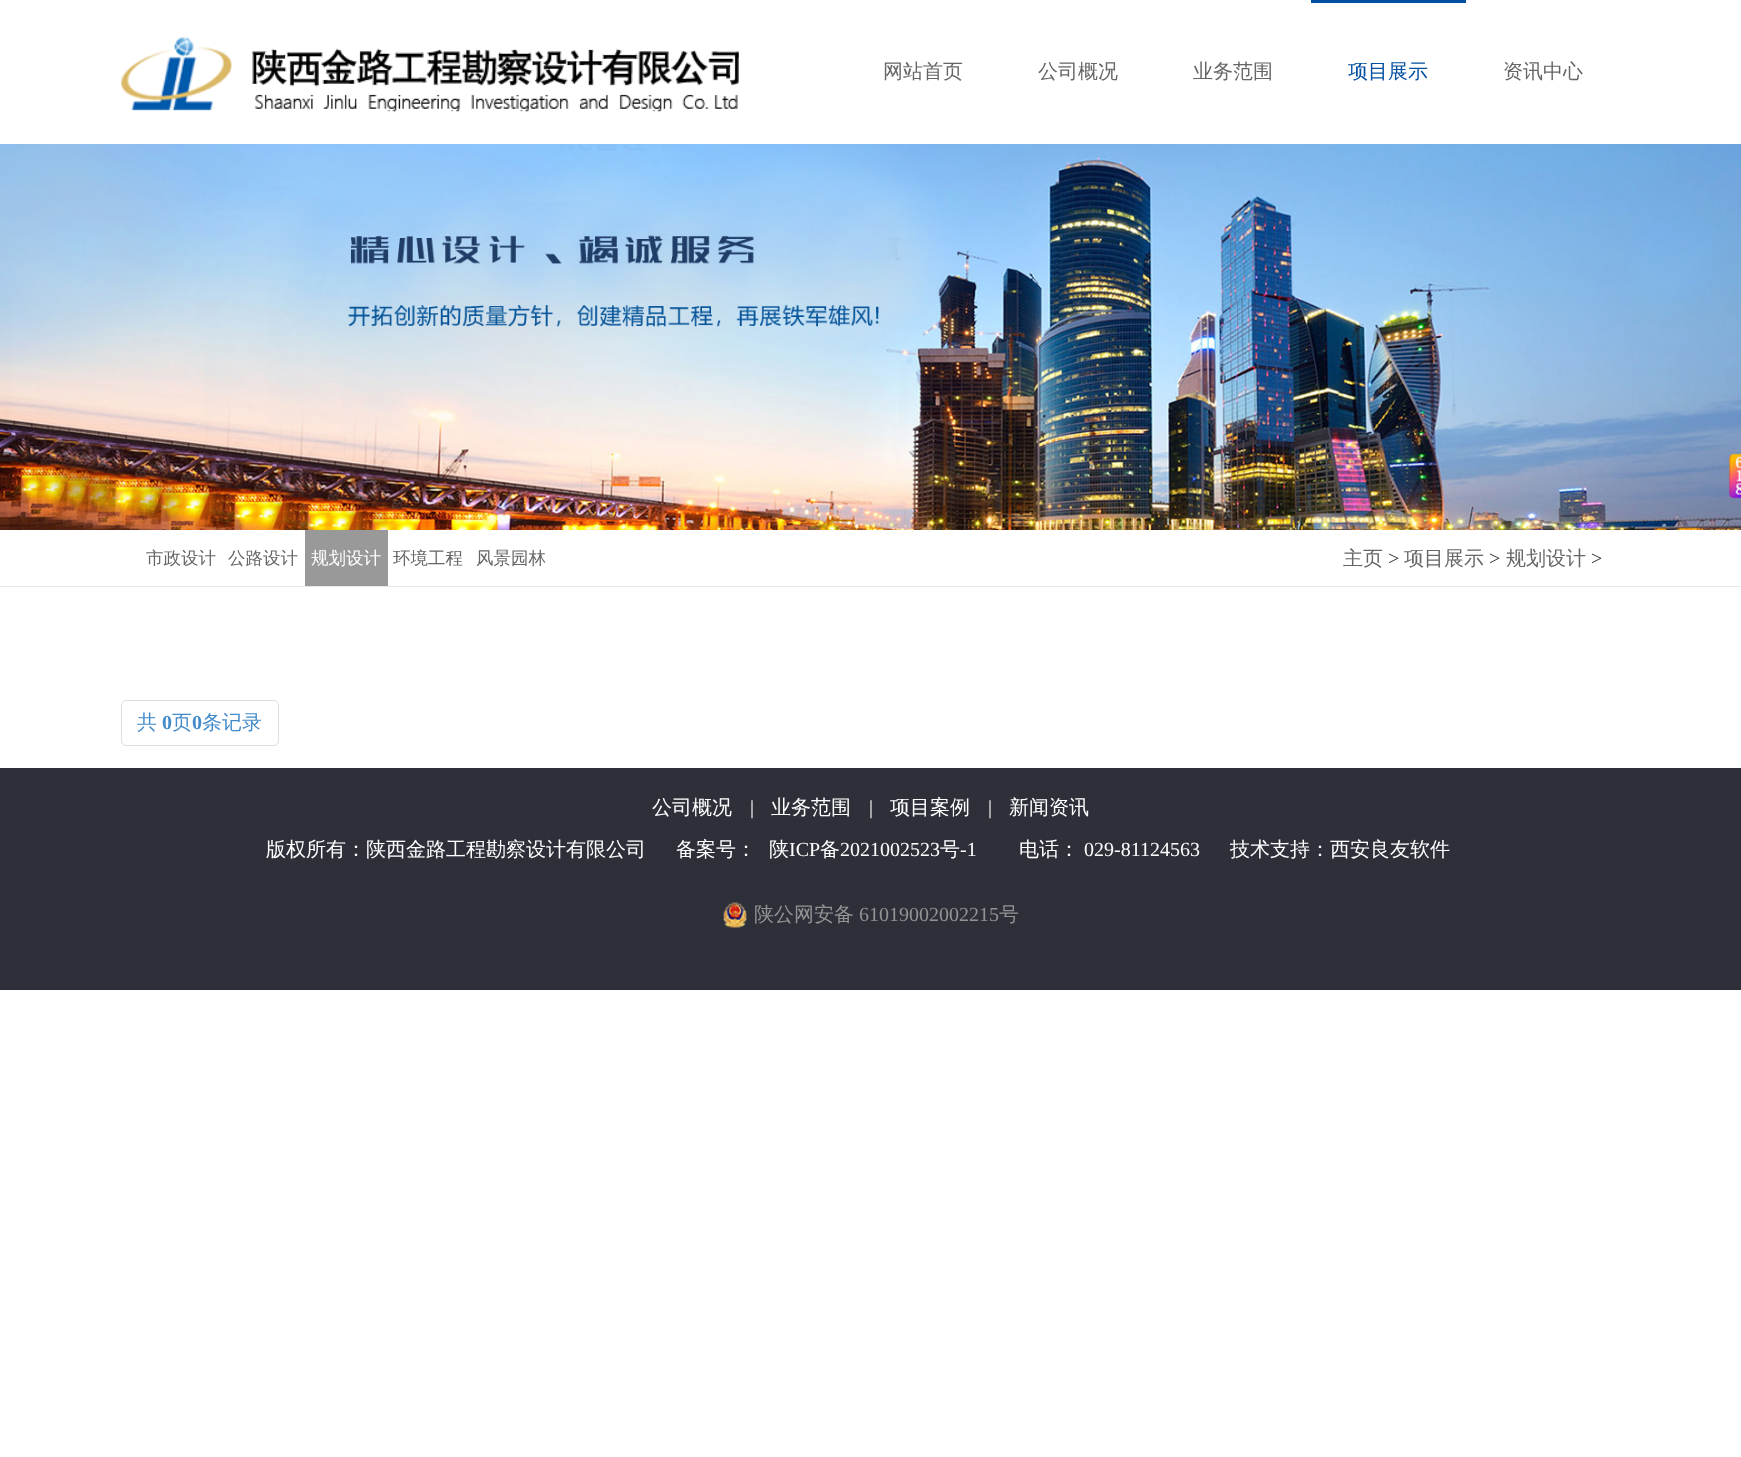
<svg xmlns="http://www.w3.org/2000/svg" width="1741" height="1457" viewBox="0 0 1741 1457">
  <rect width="100%" height="100%" fill="#fff"/>
  <image x="121" y="37" width="618" height="75" href="img/1.png"/>
  <path d="M1311 0h155v3H1311z" fill="#014fa1"/>
  <image x="0" y="144" width="1741" height="386" href="img/2.png"/>
  <path d="M0 586h1741v1H0z" fill="#e7e7e7"/>
  <path d="M305 530h83v56H305z" fill="#999"/>
  <rect x="121.5" y="700.5" width="157" height="45" rx="4.5" fill="none" stroke="#ddd"/>
  <path d="M0 768h1741v222H0z" fill="#2d3039"/>
  <image x="723" y="902" width="24" height="26" href="img/3.png"/>
  <g font-family="WenQuanYi Zen Hei" font-size="20" font-weight="500" fill="#666">
    <text x="883" y="78">网站首页</text>
    <text x="1038" y="78">公司概况</text>
    <text x="1193" y="78">业务范围</text>
  </g>
  <text x="1348" y="78" font-family="WenQuanYi Zen Hei" font-size="20" font-weight="500" fill="#014fa1">项目展示</text>
  <text x="1503" y="78" font-family="WenQuanYi Zen Hei" font-size="20" font-weight="500" fill="#666">资讯中心</text>
  <g font-family="WenQuanYi Zen Hei" font-size="17.5" font-weight="500" fill="#666">
    <text x="146" y="564">市政设计</text>
    <text x="228" y="564">公路设计</text>
  </g>
  <text x="311" y="564" font-family="WenQuanYi Zen Hei" font-size="17.5" font-weight="500" fill="#fff">规划设计</text>
  <g font-family="WenQuanYi Zen Hei" font-size="17.5" font-weight="500" fill="#666">
    <text x="393" y="564">环境工程</text>
    <text x="476" y="564">风景园林</text>
  </g>
  <text x="1343" y="565" font-family="WenQuanYi Zen Hei" font-size="20" font-weight="500" fill="#666">主页</text>
  <text x="1388" y="565" font-family="Liberation Serif" font-size="20" fill="#333">&gt;</text>
  <text x="1404" y="565" font-family="WenQuanYi Zen Hei" font-size="20" font-weight="500" fill="#666">项目展示</text>
  <text x="1489" y="565" font-family="Liberation Serif" font-size="20" fill="#333">&gt;</text>
  <text x="1506" y="565" font-family="WenQuanYi Zen Hei" font-size="20" font-weight="500" fill="#666">规划设计</text>
  <text x="1591" y="565" font-family="Liberation Serif" font-size="20" fill="#333">&gt;</text>
  <text x="137" y="729" font-family="WenQuanYi Zen Hei" font-size="20" font-weight="500" fill="#428bca">共</text>
  <text x="162" y="729" font-family="Liberation Serif" font-size="20" font-weight="bold" fill="#428bca">0</text>
  <text x="172" y="729" font-family="WenQuanYi Zen Hei" font-size="20" font-weight="500" fill="#428bca">页</text>
  <text x="192" y="729" font-family="Liberation Serif" font-size="20" font-weight="bold" fill="#428bca">0</text>
  <text x="202" y="729" font-family="WenQuanYi Zen Hei" font-size="20" font-weight="500" fill="#428bca">条记录</text>
  <text x="652" y="814" font-family="WenQuanYi Zen Hei" font-size="20" font-weight="500" fill="#fff">公司概况</text>
  <text x="750" y="814" font-family="Liberation Serif" font-size="20" fill="#fff">|</text>
  <text x="771" y="814" font-family="WenQuanYi Zen Hei" font-size="20" font-weight="500" fill="#fff">业务范围</text>
  <text x="869" y="814" font-family="Liberation Serif" font-size="20" fill="#fff">|</text>
  <text x="890" y="814" font-family="WenQuanYi Zen Hei" font-size="20" font-weight="500" fill="#fff">项目案例</text>
  <text x="988" y="814" font-family="Liberation Serif" font-size="20" fill="#fff">|</text>
  <g font-family="WenQuanYi Zen Hei" font-size="20" font-weight="500" fill="#fff">
    <text x="1009" y="814">新闻资讯</text>
    <text x="266" y="856">版权所有：陕西金路工程勘察设计有限公司</text>
    <text x="676" y="856">备案号：</text>
    <text x="769" y="856">陕</text>
  </g>
  <text x="789" y="856" font-family="Liberation Serif" font-size="20" fill="#fff">ICP</text>
  <text x="820" y="856" font-family="WenQuanYi Zen Hei" font-size="20" font-weight="500" fill="#fff">备</text>
  <text x="840" y="856" font-family="Liberation Serif" font-size="20" fill="#fff">2021002523</text>
  <text x="940" y="856" font-family="WenQuanYi Zen Hei" font-size="20" font-weight="500" fill="#fff">号</text>
  <text x="960" y="856" font-family="Liberation Serif" font-size="20" fill="#fff">-1</text>
  <text x="1019" y="856" font-family="WenQuanYi Zen Hei" font-size="20" font-weight="500" fill="#fff">电话：</text>
  <text x="1084" y="856" font-family="Liberation Serif" font-size="20" fill="#fff">029-81124563</text>
  <text x="1230" y="856" font-family="WenQuanYi Zen Hei" font-size="20" font-weight="500" fill="#fff">技术支持：西安良友软件</text>
  <text x="754" y="921" font-family="WenQuanYi Zen Hei" font-size="20" font-weight="500" fill="#939393">陕公网安备</text>
  <text x="859" y="921" font-family="Liberation Serif" font-size="20" fill="#939393">61019002002215</text>
  <text x="999" y="921" font-family="WenQuanYi Zen Hei" font-size="20" font-weight="500" fill="#939393">号</text>
</svg>
